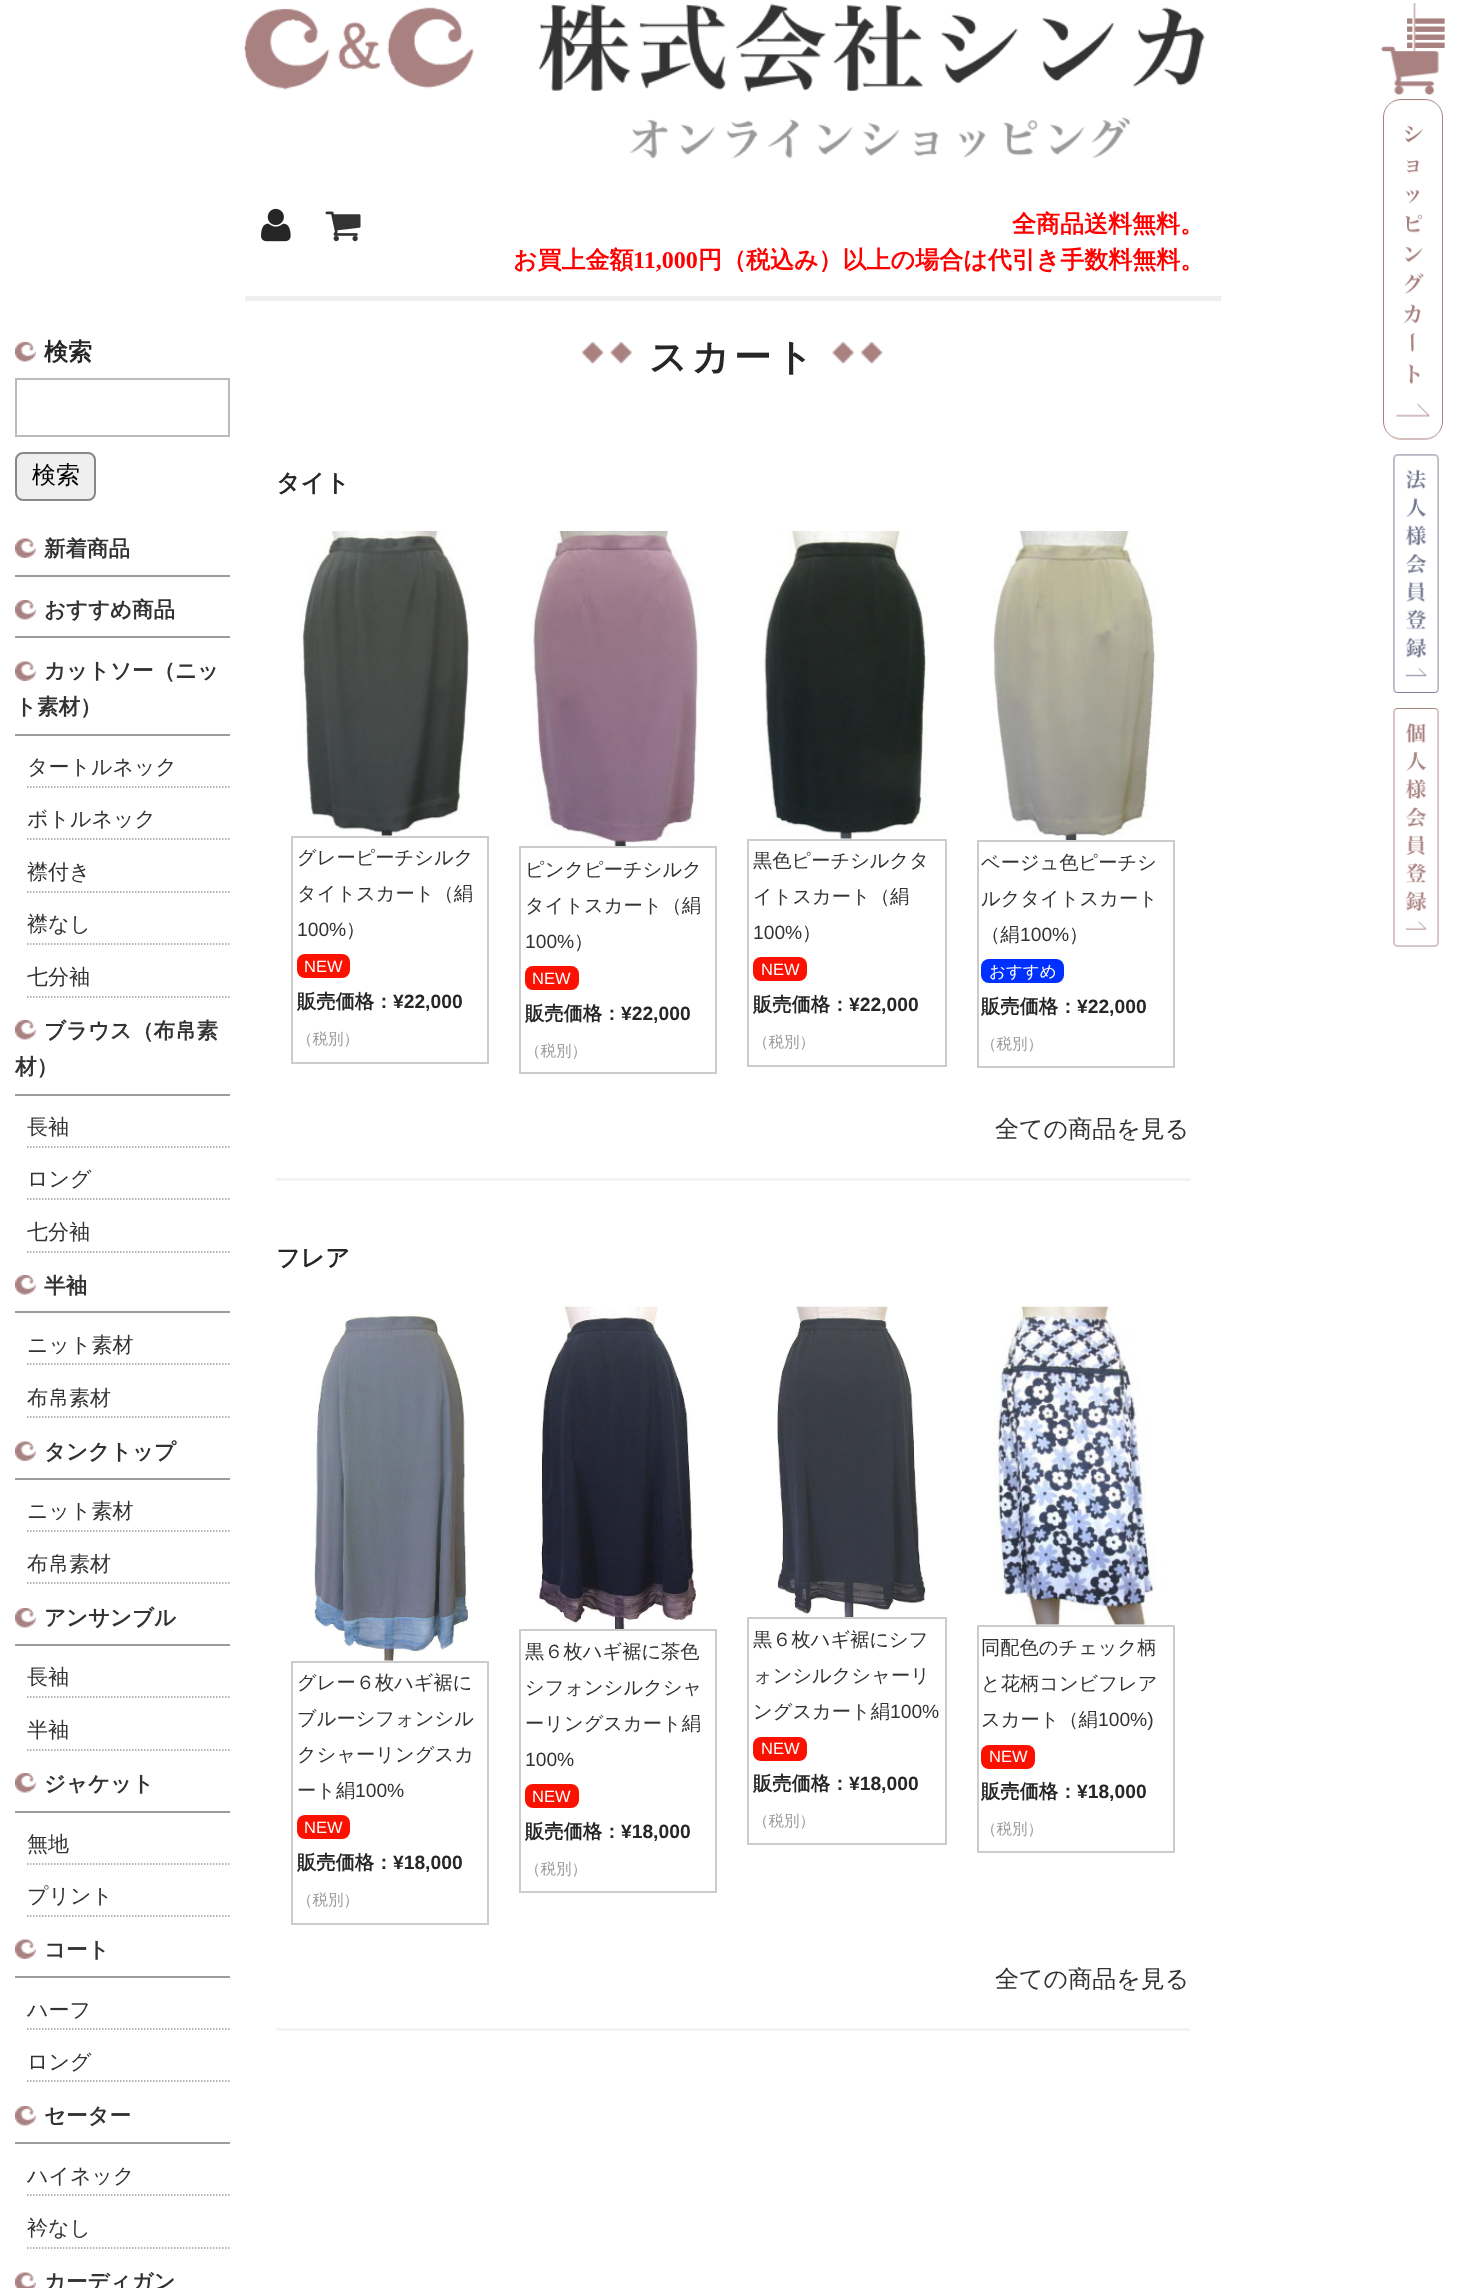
<svg xmlns="http://www.w3.org/2000/svg" width="1462" height="2288" viewBox="0 0 1462 2288">
  <rect width="100%" height="100%" fill="#fff"/>
  <path d="M245 296h976v5H245z" fill="#efefef"/>
  <image x="1381" y="3" width="58" height="93" href="img/18.png"/>
  <image x="1407" y="18" width="38" height="30" href="img/1.png"/>
  <image x="244" y="3" width="961" height="156" href="img/2.png"/>
  <image x="261" y="208" width="30" height="34" href="img/3.png"/>
  <image x="325" y="211" width="36" height="31" href="img/4.png"/>
  <image x="15" y="342" width="21" height="20" href="img/5.png"/>
  <path d="M16 379h213v57H16z" fill="none" stroke="#bbb" stroke-width="2"/>
  <rect x="16" y="453" width="79" height="47" rx="7" fill="#efefef" stroke="#888" stroke-width="2"/>
  <path d="M15 575h215v2H15z" fill="#9c9c9c"/>
  <image x="15" y="538" width="21" height="20" href="img/6.png"/>
  <path d="M15 636h215v2H15z" fill="#9c9c9c"/>
  <image x="15" y="600" width="21" height="20" href="img/5.png"/>
  <path d="M15 734h215v2H15z" fill="#9c9c9c"/>
  <image x="15" y="661" width="21" height="20" href="img/6.png"/>
  <path d="M27 787H229.5" fill="none" stroke="#9c9c9c" stroke-width="1.5" stroke-dasharray="1.5 1.5"/>
  <path d="M27 839H229.5" fill="none" stroke="#9c9c9c" stroke-width="1.5" stroke-dasharray="1.5 1.5"/>
  <path d="M27 892H229.5" fill="none" stroke="#9c9c9c" stroke-width="1.5" stroke-dasharray="1.5 1.5"/>
  <path d="M27 944H229.5" fill="none" stroke="#9c9c9c" stroke-width="1.5" stroke-dasharray="1.5 1.5"/>
  <path d="M27 997H229.5" fill="none" stroke="#9c9c9c" stroke-width="1.5" stroke-dasharray="1.5 1.5"/>
  <path d="M15 1094h215v2H15z" fill="#9c9c9c"/>
  <image x="15" y="1020" width="21" height="20" href="img/5.png"/>
  <path d="M27 1147H229.5" fill="none" stroke="#9c9c9c" stroke-width="1.5" stroke-dasharray="1.5 1.5"/>
  <path d="M27 1199H229.5" fill="none" stroke="#9c9c9c" stroke-width="1.5" stroke-dasharray="1.5 1.5"/>
  <path d="M27 1252H229.5" fill="none" stroke="#9c9c9c" stroke-width="1.5" stroke-dasharray="1.5 1.5"/>
  <path d="M15 1311h215v2H15z" fill="#9c9c9c"/>
  <image x="15" y="1275" width="21" height="20" href="img/5.png"/>
  <path d="M27 1364H229.5" fill="none" stroke="#9c9c9c" stroke-width="1.5" stroke-dasharray="1.5 1.5"/>
  <path d="M27 1417H229.5" fill="none" stroke="#9c9c9c" stroke-width="1.5" stroke-dasharray="1.5 1.5"/>
  <path d="M15 1478h215v2H15z" fill="#9c9c9c"/>
  <image x="15" y="1441" width="21" height="20" href="img/6.png"/>
  <path d="M27 1531H229.5" fill="none" stroke="#9c9c9c" stroke-width="1.5" stroke-dasharray="1.5 1.5"/>
  <path d="M27 1583H229.5" fill="none" stroke="#9c9c9c" stroke-width="1.5" stroke-dasharray="1.5 1.5"/>
  <path d="M15 1644h215v2H15z" fill="#9c9c9c"/>
  <image x="15" y="1608" width="21" height="20" href="img/5.png"/>
  <path d="M27 1697H229.5" fill="none" stroke="#9c9c9c" stroke-width="1.5" stroke-dasharray="1.5 1.5"/>
  <path d="M27 1750H229.5" fill="none" stroke="#9c9c9c" stroke-width="1.5" stroke-dasharray="1.5 1.5"/>
  <path d="M15 1811h215v2H15z" fill="#9c9c9c"/>
  <image x="15" y="1773" width="21" height="20" href="img/5.png"/>
  <path d="M27 1864H229.5" fill="none" stroke="#9c9c9c" stroke-width="1.5" stroke-dasharray="1.5 1.5"/>
  <path d="M27 1916H229.5" fill="none" stroke="#9c9c9c" stroke-width="1.5" stroke-dasharray="1.5 1.5"/>
  <path d="M15 1976h215v2H15z" fill="#9c9c9c"/>
  <image x="15" y="1939" width="21" height="20" href="img/6.png"/>
  <path d="M27 2029H229.5" fill="none" stroke="#9c9c9c" stroke-width="1.5" stroke-dasharray="1.5 1.5"/>
  <path d="M27 2081H229.5" fill="none" stroke="#9c9c9c" stroke-width="1.5" stroke-dasharray="1.5 1.5"/>
  <path d="M15 2142h215v2H15z" fill="#9c9c9c"/>
  <image x="15" y="2106" width="21" height="20" href="img/5.png"/>
  <path d="M27 2195H229.5" fill="none" stroke="#9c9c9c" stroke-width="1.5" stroke-dasharray="1.5 1.5"/>
  <path d="M27 2248H229.5" fill="none" stroke="#9c9c9c" stroke-width="1.5" stroke-dasharray="1.5 1.5"/>
  <image x="15" y="2272" width="21" height="16" href="img/7.png"/>
  <image x="582" y="342" width="50" height="22" href="img/8.png"/>
  <image x="832" y="342" width="51" height="22" href="img/9.png"/>
  <path d="M276 1178h914v3H276z" fill="#f3f3f3"/>
  <image x="299" y="531" width="170" height="305" href="img/10.png"/>
  <path d="M292 837h196v226H292z" fill="none" stroke="#ccc" stroke-width="2"/>
  <rect x="297" y="954" width="53" height="24" rx="8" fill="#fa1100"/>
  <image x="529" y="531" width="174" height="315" href="img/11.png"/>
  <path d="M520 847h196v226H520z" fill="none" stroke="#ccc" stroke-width="2"/>
  <rect x="525" y="966" width="54" height="24" rx="8" fill="#fa1100"/>
  <image x="764" y="531" width="164" height="308" href="img/12.png"/>
  <path d="M748 840h198v226H748z" fill="none" stroke="#ccc" stroke-width="2"/>
  <rect x="753" y="957" width="54" height="24" rx="8" fill="#fa1100"/>
  <image x="993" y="531" width="164" height="309" href="img/13.png"/>
  <path d="M978 841h196v226H978z" fill="none" stroke="#ccc" stroke-width="2"/>
  <rect x="981" y="959" width="83" height="24" rx="8" fill="#0030ff"/>
  <path d="M276 2028h914v3H276z" fill="#f3f3f3"/>
  <image x="313" y="1314" width="155" height="347" href="img/14.png"/>
  <path d="M292 1662h196v262H292z" fill="none" stroke="#ccc" stroke-width="2"/>
  <rect x="297" y="1815" width="53" height="24" rx="8" fill="#fa1100"/>
  <image x="539" y="1306" width="157" height="323" href="img/15.png"/>
  <path d="M520 1630h196v262H520z" fill="none" stroke="#ccc" stroke-width="2"/>
  <rect x="525" y="1784" width="54" height="24" rx="8" fill="#fa1100"/>
  <image x="776" y="1306" width="150" height="311" href="img/16.png"/>
  <path d="M748 1618h198v226H748z" fill="none" stroke="#ccc" stroke-width="2"/>
  <rect x="753" y="1737" width="54" height="24" rx="8" fill="#fa1100"/>
  <image x="993" y="1306" width="170" height="319" href="img/17.png"/>
  <path d="M978 1626h196v226H978z" fill="none" stroke="#ccc" stroke-width="2"/>
  <rect x="981" y="1745" width="54" height="24" rx="8" fill="#fa1100"/>
  <image x="1383" y="99" width="60" height="341" href="img/19.png"/>
  <image x="1393" y="454" width="46" height="239" href="img/20.png"/>
  <image x="1393" y="708" width="46" height="239" href="img/21.png"/>
  <g font-family="WenQuanYi Zen Hei" font-size="24" font-weight="bold" fill="#f00">
    <text x="1012" y="232">全商品送料無料。</text>
    <text x="513" y="268">お買上金額</text>
  </g>
  <text x="633" y="268" font-family="Liberation Serif" font-size="24" font-weight="bold" fill="#f00">11,000</text>
  <text x="698" y="268" font-family="WenQuanYi Zen Hei" font-size="24" font-weight="bold" fill="#f00">円（税込み）以上の場合は代引き手数料無料。</text>
  <text x="44" y="360" font-family="WenQuanYi Zen Hei" font-size="24" font-weight="bold" fill="#262626">検索</text>
  <text x="32" y="483" font-family="WenQuanYi Zen Hei" font-size="24" font-weight="500" fill="#000">検索</text>
  <g font-family="WenQuanYi Zen Hei" font-size="21.5" font-weight="bold" fill="#333">
    <text x="44" y="556">新着商品</text>
    <text x="44" y="617">おすすめ商品</text>
    <text x="44" y="678">カットソー（ニッ</text>
    <text x="15" y="714">ト素材）</text>
  </g>
  <g font-family="WenQuanYi Zen Hei" font-size="21" font-weight="500" fill="#333">
    <text x="27" y="774">タートルネック</text>
    <text x="27" y="826">ボトルネック</text>
    <text x="27" y="879">襟付き</text>
    <text x="27" y="931">襟なし</text>
    <text x="27" y="984">七分袖</text>
  </g>
  <g font-family="WenQuanYi Zen Hei" font-size="21.5" font-weight="bold" fill="#333">
    <text x="44" y="1038">ブラウス（布帛素</text>
    <text x="15" y="1074">材）</text>
  </g>
  <g font-family="WenQuanYi Zen Hei" font-size="21" font-weight="500" fill="#333">
    <text x="27" y="1134">長袖</text>
    <text x="27" y="1186">ロング</text>
    <text x="27" y="1239">七分袖</text>
  </g>
  <text x="44" y="1293" font-family="WenQuanYi Zen Hei" font-size="21.5" font-weight="bold" fill="#333">半袖</text>
  <g font-family="WenQuanYi Zen Hei" font-size="21" font-weight="500" fill="#333">
    <text x="27" y="1352">ニット素材</text>
    <text x="27" y="1405">布帛素材</text>
  </g>
  <text x="44" y="1459" font-family="WenQuanYi Zen Hei" font-size="21.5" font-weight="bold" fill="#333">タンクトップ</text>
  <g font-family="WenQuanYi Zen Hei" font-size="21" font-weight="500" fill="#333">
    <text x="27" y="1518">ニット素材</text>
    <text x="27" y="1571">布帛素材</text>
  </g>
  <text x="44" y="1625" font-family="WenQuanYi Zen Hei" font-size="21.5" font-weight="bold" fill="#333">アンサンブル</text>
  <g font-family="WenQuanYi Zen Hei" font-size="21" font-weight="500" fill="#333">
    <text x="27" y="1684">長袖</text>
    <text x="27" y="1737">半袖</text>
  </g>
  <text x="44" y="1791" font-family="WenQuanYi Zen Hei" font-size="21.5" font-weight="bold" fill="#333">ジャケット</text>
  <g font-family="WenQuanYi Zen Hei" font-size="21" font-weight="500" fill="#333">
    <text x="27" y="1851">無地</text>
    <text x="27" y="1903">プリント</text>
  </g>
  <text x="44" y="1957" font-family="WenQuanYi Zen Hei" font-size="21.5" font-weight="bold" fill="#333">コート</text>
  <g font-family="WenQuanYi Zen Hei" font-size="21" font-weight="500" fill="#333">
    <text x="27" y="2017">ハーフ</text>
    <text x="27" y="2069">ロング</text>
  </g>
  <text x="44" y="2123" font-family="WenQuanYi Zen Hei" font-size="21.5" font-weight="bold" fill="#333">セーター</text>
  <g font-family="WenQuanYi Zen Hei" font-size="21" font-weight="500" fill="#333">
    <text x="27" y="2183">ハイネック</text>
    <text x="27" y="2235">衿なし</text>
  </g>
  <text x="44" y="2289" font-family="WenQuanYi Zen Hei" font-size="21.5" font-weight="bold" fill="#333">カーディガン</text>
  <text x="649" y="370" font-family="WenQuanYi Zen Hei" font-size="37.5" font-weight="bold" letter-spacing="4" fill="#262626">スカート</text>
  <text x="276" y="491" font-family="WenQuanYi Zen Hei" font-size="24" font-weight="bold" fill="#262626">タイト</text>
  <g font-family="WenQuanYi Zen Hei" font-size="19.25" font-weight="500" fill="#333">
    <text x="297" y="864">グレーピーチシルク</text>
    <text x="297" y="900">タイトスカート（絹</text>
  </g>
  <text x="297" y="936" font-family="Liberation Sans" font-size="19.25" fill="#333">100%</text>
  <text x="346" y="936" font-family="WenQuanYi Zen Hei" font-size="19.25" font-weight="500" fill="#333">）</text>
  <text x="304" y="972" font-family="Liberation Sans" font-size="16.5" fill="#fff">NEW</text>
  <text x="297" y="1008" font-family="WenQuanYi Zen Hei" font-size="19.25" font-weight="bold" fill="#262626">販売価格：</text>
  <text x="393" y="1008" font-family="Liberation Sans" font-size="19.25" font-weight="bold" fill="#262626">¥22,000</text>
  <text x="297" y="1044" font-family="WenQuanYi Zen Hei" font-size="15.5" font-weight="500" fill="#999">（税別）</text>
  <g font-family="WenQuanYi Zen Hei" font-size="19.25" font-weight="500" fill="#333">
    <text x="525" y="876">ピンクピーチシルク</text>
    <text x="525" y="912">タイトスカート（絹</text>
  </g>
  <text x="525" y="948" font-family="Liberation Sans" font-size="19.25" fill="#333">100%</text>
  <text x="574" y="948" font-family="WenQuanYi Zen Hei" font-size="19.25" font-weight="500" fill="#333">）</text>
  <text x="532" y="984" font-family="Liberation Sans" font-size="16.5" fill="#fff">NEW</text>
  <text x="525" y="1020" font-family="WenQuanYi Zen Hei" font-size="19.25" font-weight="bold" fill="#262626">販売価格：</text>
  <text x="621" y="1020" font-family="Liberation Sans" font-size="19.25" font-weight="bold" fill="#262626">¥22,000</text>
  <text x="525" y="1056" font-family="WenQuanYi Zen Hei" font-size="15.5" font-weight="500" fill="#999">（税別）</text>
  <g font-family="WenQuanYi Zen Hei" font-size="19.25" font-weight="500" fill="#333">
    <text x="753" y="867">黒色ピーチシルクタ</text>
    <text x="753" y="903">イトスカート（絹</text>
  </g>
  <text x="753" y="939" font-family="Liberation Sans" font-size="19.25" fill="#333">100%</text>
  <text x="802" y="939" font-family="WenQuanYi Zen Hei" font-size="19.25" font-weight="500" fill="#333">）</text>
  <text x="761" y="975" font-family="Liberation Sans" font-size="16.5" fill="#fff">NEW</text>
  <text x="753" y="1011" font-family="WenQuanYi Zen Hei" font-size="19.25" font-weight="bold" fill="#262626">販売価格：</text>
  <text x="849" y="1011" font-family="Liberation Sans" font-size="19.25" font-weight="bold" fill="#262626">¥22,000</text>
  <text x="753" y="1047" font-family="WenQuanYi Zen Hei" font-size="15.5" font-weight="500" fill="#999">（税別）</text>
  <g font-family="WenQuanYi Zen Hei" font-size="19.25" font-weight="500" fill="#333">
    <text x="981" y="869">ベージュ色ピーチシ</text>
    <text x="981" y="905">ルクタイトスカート</text>
    <text x="981" y="941">（絹</text>
  </g>
  <text x="1020" y="941" font-family="Liberation Sans" font-size="19.25" fill="#333">100%</text>
  <text x="1069" y="941" font-family="WenQuanYi Zen Hei" font-size="19.25" font-weight="500" fill="#333">）</text>
  <text x="989" y="977" font-family="WenQuanYi Zen Hei" font-size="16.5" font-weight="500" fill="#fff">おすすめ</text>
  <text x="981" y="1013" font-family="WenQuanYi Zen Hei" font-size="19.25" font-weight="bold" fill="#262626">販売価格：</text>
  <text x="1077" y="1013" font-family="Liberation Sans" font-size="19.25" font-weight="bold" fill="#262626">¥22,000</text>
  <text x="981" y="1049" font-family="WenQuanYi Zen Hei" font-size="15.5" font-weight="500" fill="#999">（税別）</text>
  <text x="995" y="1137" font-family="WenQuanYi Zen Hei" font-size="24" font-weight="500" fill="#333">全ての商品を見る</text>
  <text x="276" y="1266" font-family="WenQuanYi Zen Hei" font-size="24" font-weight="bold" fill="#262626">フレア</text>
  <g font-family="WenQuanYi Zen Hei" font-size="19.25" font-weight="500" fill="#333">
    <text x="297" y="1689">グレー６枚ハギ裾に</text>
    <text x="297" y="1725">ブルーシフォンシル</text>
    <text x="297" y="1761">クシャーリングスカ</text>
    <text x="297" y="1797">ート絹</text>
  </g>
  <text x="355" y="1797" font-family="Liberation Sans" font-size="19.25" fill="#333">100%</text>
  <text x="304" y="1833" font-family="Liberation Sans" font-size="16.5" fill="#fff">NEW</text>
  <text x="297" y="1869" font-family="WenQuanYi Zen Hei" font-size="19.25" font-weight="bold" fill="#262626">販売価格：</text>
  <text x="393" y="1869" font-family="Liberation Sans" font-size="19.25" font-weight="bold" fill="#262626">¥18,000</text>
  <text x="297" y="1905" font-family="WenQuanYi Zen Hei" font-size="15.5" font-weight="500" fill="#999">（税別）</text>
  <g font-family="WenQuanYi Zen Hei" font-size="19.25" font-weight="500" fill="#333">
    <text x="525" y="1658">黒６枚ハギ裾に茶色</text>
    <text x="525" y="1694">シフォンシルクシャ</text>
    <text x="525" y="1730">ーリングスカート絹</text>
  </g>
  <text x="525" y="1766" font-family="Liberation Sans" font-size="19.25" fill="#333">100%</text>
  <text x="532" y="1802" font-family="Liberation Sans" font-size="16.5" fill="#fff">NEW</text>
  <text x="525" y="1838" font-family="WenQuanYi Zen Hei" font-size="19.25" font-weight="bold" fill="#262626">販売価格：</text>
  <text x="621" y="1838" font-family="Liberation Sans" font-size="19.25" font-weight="bold" fill="#262626">¥18,000</text>
  <text x="525" y="1874" font-family="WenQuanYi Zen Hei" font-size="15.5" font-weight="500" fill="#999">（税別）</text>
  <g font-family="WenQuanYi Zen Hei" font-size="19.25" font-weight="500" fill="#333">
    <text x="753" y="1646">黒６枚ハギ裾にシフ</text>
    <text x="753" y="1682">ォンシルクシャーリ</text>
    <text x="753" y="1718">ングスカート絹</text>
  </g>
  <text x="890" y="1718" font-family="Liberation Sans" font-size="19.25" fill="#333">100%</text>
  <text x="761" y="1754" font-family="Liberation Sans" font-size="16.5" fill="#fff">NEW</text>
  <text x="753" y="1790" font-family="WenQuanYi Zen Hei" font-size="19.25" font-weight="bold" fill="#262626">販売価格：</text>
  <text x="849" y="1790" font-family="Liberation Sans" font-size="19.25" font-weight="bold" fill="#262626">¥18,000</text>
  <text x="753" y="1826" font-family="WenQuanYi Zen Hei" font-size="15.5" font-weight="500" fill="#999">（税別）</text>
  <g font-family="WenQuanYi Zen Hei" font-size="19.25" font-weight="500" fill="#333">
    <text x="981" y="1654">同配色のチェック柄</text>
    <text x="981" y="1690">と花柄コンビフレア</text>
    <text x="981" y="1726">スカート（絹</text>
  </g>
  <text x="1098" y="1726" font-family="Liberation Sans" font-size="19.25" fill="#333">100%)</text>
  <text x="989" y="1762" font-family="Liberation Sans" font-size="16.5" fill="#fff">NEW</text>
  <text x="981" y="1798" font-family="WenQuanYi Zen Hei" font-size="19.25" font-weight="bold" fill="#262626">販売価格：</text>
  <text x="1077" y="1798" font-family="Liberation Sans" font-size="19.25" font-weight="bold" fill="#262626">¥18,000</text>
  <text x="981" y="1834" font-family="WenQuanYi Zen Hei" font-size="15.5" font-weight="500" fill="#999">（税別）</text>
  <text x="995" y="1987" font-family="WenQuanYi Zen Hei" font-size="24" font-weight="500" fill="#333">全ての商品を見る</text>
</svg>
